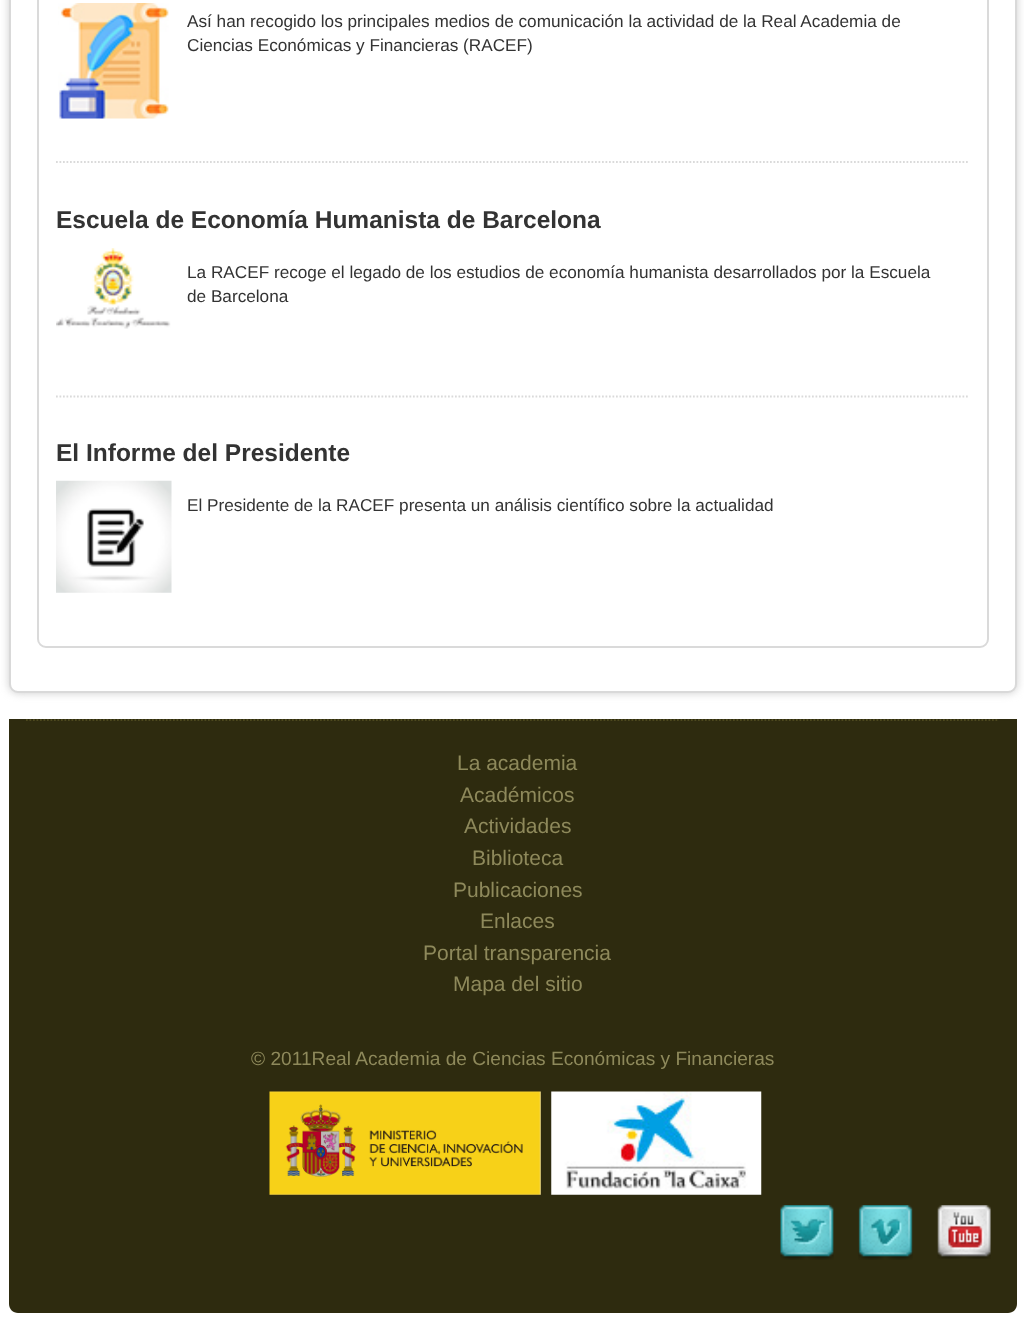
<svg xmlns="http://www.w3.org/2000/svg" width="1024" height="1329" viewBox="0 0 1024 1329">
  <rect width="100%" height="100%" fill="#fff"/>
  <rect x="9" y="-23" width="1008" height="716" rx="9" fill="#ccc" filter="blur(4.5px)"/>
  <rect x="10" y="-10" width="1006" height="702" rx="8" fill="#fff" stroke="#d9d9d9" stroke-width="2"/>
  <rect x="38" y="-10" width="950" height="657" rx="8" fill="none" stroke="#dadada" stroke-width="2"/>
  <path d="M56 162H969.5" fill="none" stroke="#dadada" stroke-width="1.8" stroke-dasharray="1.75 1.75"/>
  <image x="58" y="3" width="111" height="116" href="img/1.png"/>
  <path d="M56 396.5H969.5" fill="none" stroke="#dadada" stroke-width="1.8" stroke-dasharray="1.75 1.75"/>
  <image x="56" y="248" width="115" height="81" href="img/2.png"/>
  <image x="56" y="480" width="116" height="113" href="img/3.png"/>
  <path d="M9 719H1017V1304C1017 1309 1013 1313 1008 1313H18C13 1313 9 1309 9 1304Z" fill="#2e2b0f"/>
  <path d="M26 720H999" fill="none" stroke="#4c481e" stroke-width="1.8" stroke-dasharray="1.75 1.75"/>
  <image x="269" y="1091" width="272" height="104" href="img/4.png"/>
  <image x="551" y="1091" width="211" height="104" href="img/5.png"/>
  <image x="780" y="1205" width="54" height="55" href="img/6.png"/>
  <image x="858" y="1205" width="55" height="55" href="img/7.png"/>
  <image x="937" y="1205" width="54" height="54" href="img/8.png"/>
  <g font-family="Liberation Sans" font-size="17.2" fill="#333">
    <text x="187" y="27">Así han recogido los principales medios de comunicación la actividad de la Real Academia de</text>
    <text x="187" y="51">Ciencias Económicas y Financieras (RACEF)</text>
  </g>
  <text x="56" y="228" font-family="Liberation Sans" font-size="24.5" font-weight="bold" fill="#333">Escuela de Economía Humanista de Barcelona</text>
  <g font-family="Liberation Sans" font-size="17.2" fill="#333">
    <text x="187" y="278">La RACEF recoge el legado de los estudios de economía humanista desarrollados por la Escuela</text>
    <text x="187" y="302">de Barcelona</text>
  </g>
  <text x="56" y="461" font-family="Liberation Sans" font-size="24.5" font-weight="bold" fill="#333">El Informe del Presidente</text>
  <text x="187" y="511" font-family="Liberation Sans" font-size="17.2" fill="#333">El Presidente de la RACEF presenta un análisis científico sobre la actualidad</text>
  <g font-family="Liberation Sans" font-size="21" fill="#8e895b">
    <text x="457" y="770">La academia</text>
    <text x="460" y="802">Académicos</text>
    <text x="464" y="833">Actividades</text>
    <text x="472" y="865">Biblioteca</text>
    <text x="453" y="897">Publicaciones</text>
    <text x="480" y="928">Enlaces</text>
    <text x="423" y="960">Portal transparencia</text>
    <text x="453" y="991">Mapa del sitio</text>
  </g>
  <text x="251" y="1065" font-family="Liberation Sans" font-size="19.15" fill="#8e895b">© 2011Real Academia de Ciencias Económicas y Financieras</text>
</svg>
